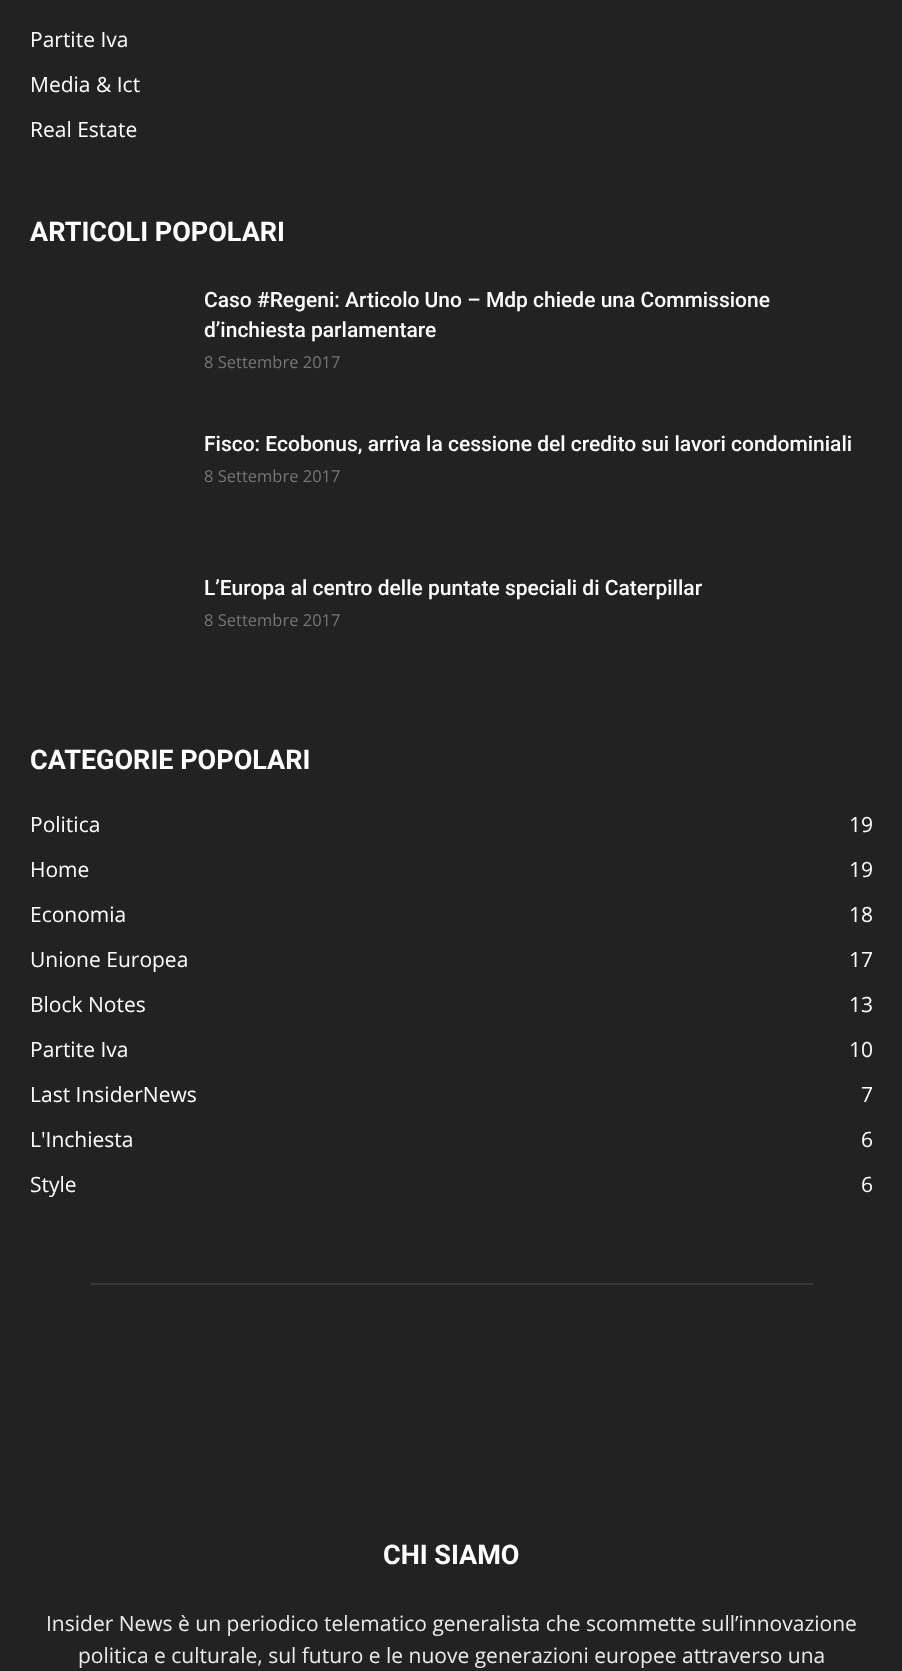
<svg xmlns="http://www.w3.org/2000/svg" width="902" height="1671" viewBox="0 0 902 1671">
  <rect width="100%" height="100%" fill="#222"/>
  <path d="M90 1283h723v2H90z" fill="#383838"/>
  <g font-family="Open Sans" font-size="21" fill="#fff">
    <text x="30" y="47">Partite Iva</text>
    <text x="30" y="92">Media &amp; Ict</text>
    <text x="30" y="137">Real Estate</text>
  </g>
  <text x="30" y="241" font-family="Roboto" font-size="27" font-weight="bold" fill="#fff">ARTICOLI POPOLARI</text>
  <g font-family="Roboto" font-size="21" font-weight="500" fill="#fff">
    <text x="204" y="307">Caso #Regeni: Articolo Uno – Mdp chiede una Commissione</text>
    <text x="204" y="337">d’inchiesta parlamentare</text>
  </g>
  <text x="204" y="368" font-family="Open Sans" font-size="16.5" fill="#767676">8 Settembre 2017</text>
  <text x="204" y="451" font-family="Roboto" font-size="21" font-weight="500" fill="#fff">Fisco: Ecobonus, arriva la cessione del credito sui lavori condominiali</text>
  <text x="204" y="482" font-family="Open Sans" font-size="16.5" fill="#767676">8 Settembre 2017</text>
  <text x="204" y="595" font-family="Roboto" font-size="21" font-weight="500" fill="#fff">L’Europa al centro delle puntate speciali di Caterpillar</text>
  <text x="204" y="626" font-family="Open Sans" font-size="16.5" fill="#767676">8 Settembre 2017</text>
  <text x="30" y="769" font-family="Roboto" font-size="27" font-weight="bold" fill="#fff">CATEGORIE POPOLARI</text>
  <g font-family="Open Sans" font-size="21" fill="#fff">
    <text x="30" y="832">Politica</text>
    <text x="849" y="832">19</text>
    <text x="30" y="877">Home</text>
    <text x="849" y="877">19</text>
    <text x="30" y="922">Economia</text>
    <text x="849" y="922">18</text>
    <text x="30" y="967">Unione Europea</text>
    <text x="849" y="967">17</text>
    <text x="30" y="1012">Block Notes</text>
    <text x="849" y="1012">13</text>
    <text x="30" y="1057">Partite Iva</text>
    <text x="849" y="1057">10</text>
    <text x="30" y="1102">Last InsiderNews</text>
    <text x="861" y="1102">7</text>
    <text x="30" y="1147">L'Inchiesta</text>
    <text x="861" y="1147">6</text>
    <text x="30" y="1192">Style</text>
    <text x="861" y="1192">6</text>
  </g>
  <text x="383" y="1564" font-family="Roboto" font-size="27" font-weight="bold" fill="#fff">CHI SIAMO</text>
  <g font-family="Open Sans" font-size="21" fill="#eaeaea">
    <text x="46" y="1631">Insider News è un periodico telematico generalista che scommette sull’innovazione</text>
    <text x="78" y="1663">politica e culturale, sul futuro e le nuove generazioni europee attraverso una</text>
  </g>
</svg>
